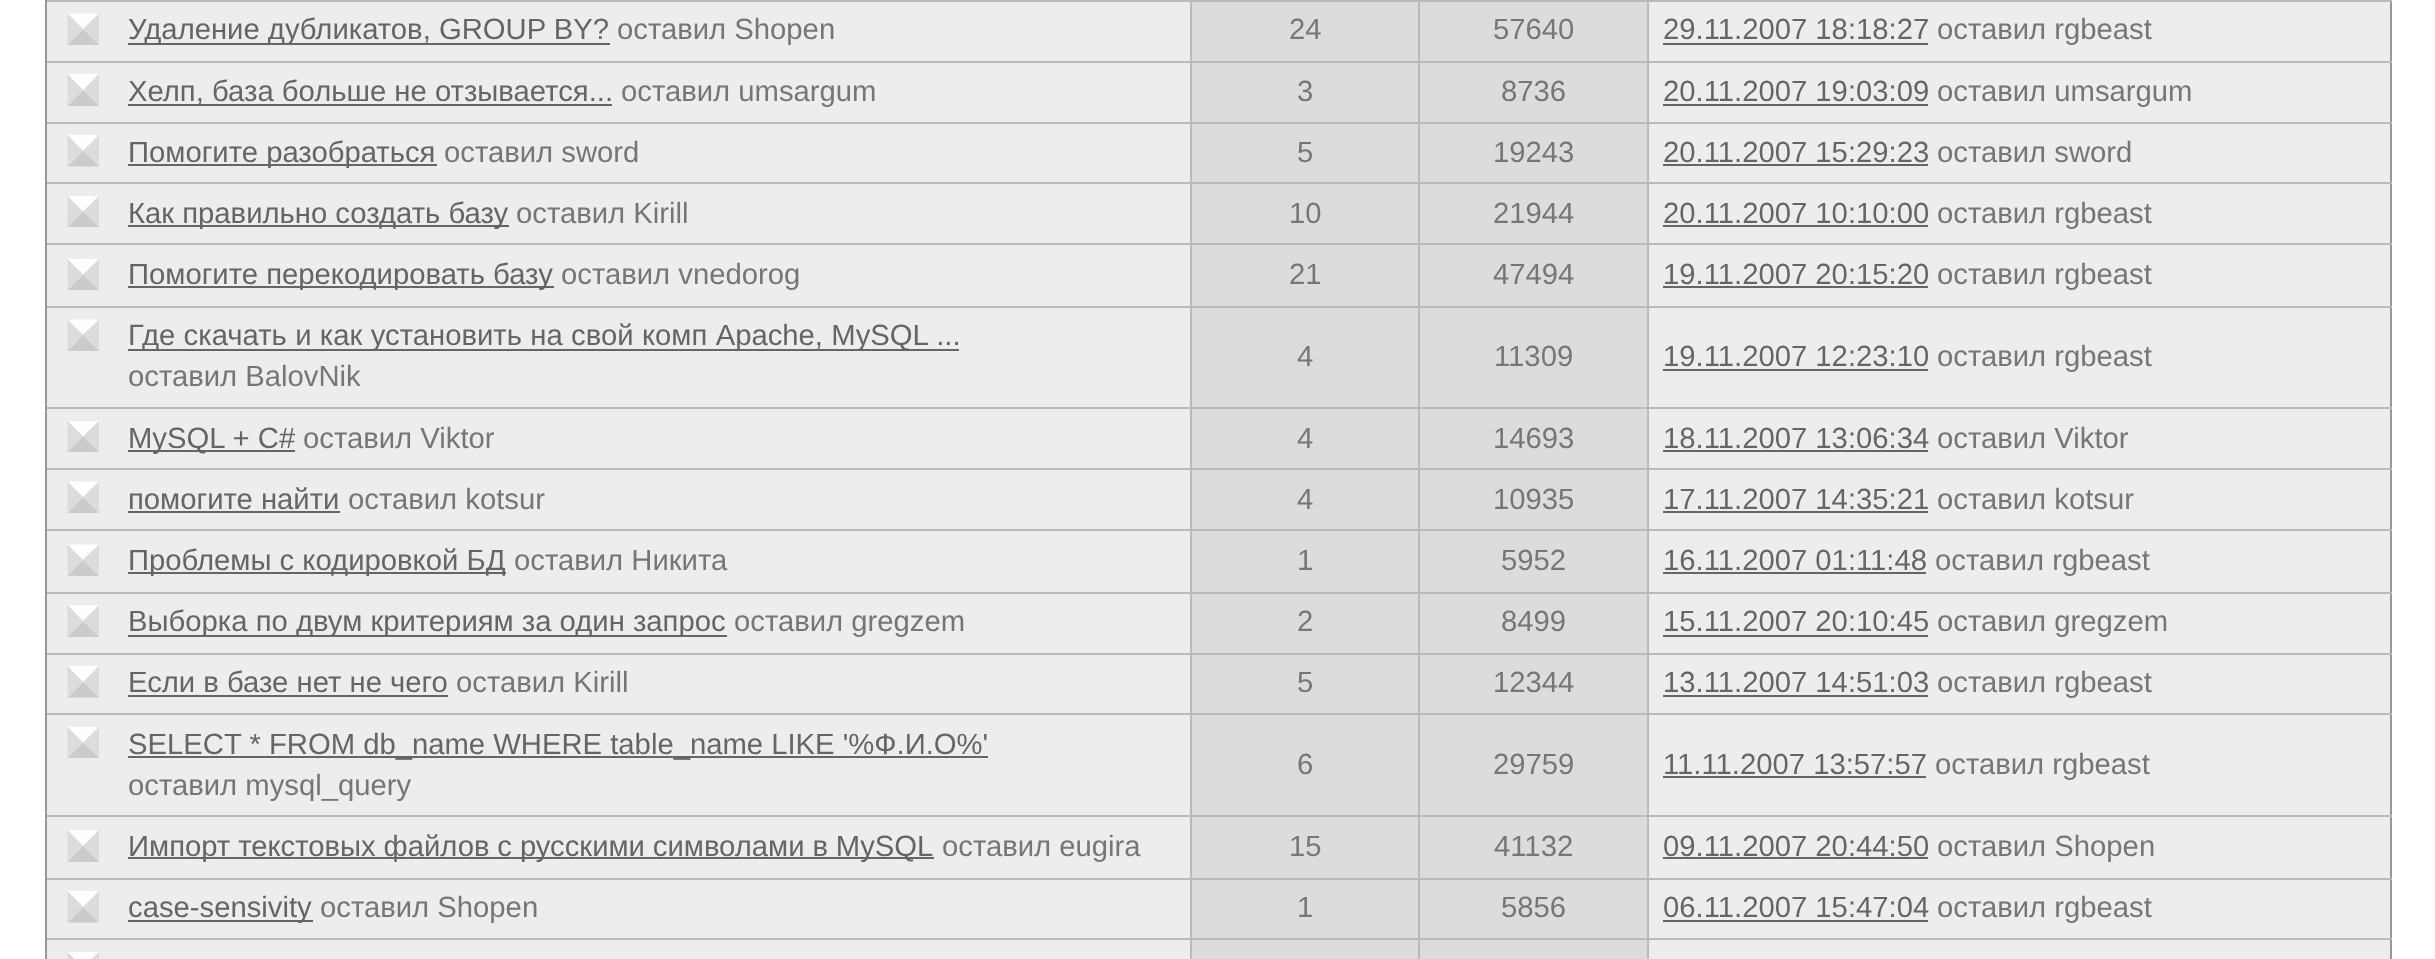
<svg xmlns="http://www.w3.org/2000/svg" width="2435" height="959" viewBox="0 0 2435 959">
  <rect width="100%" height="100%" fill="#fff"/>
  <path d="M47 2h2343v957H47z" fill="#ededed"/>
  <path d="M46 -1h2345v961H46z" fill="none" stroke="#989898" stroke-width="2"/>
  <path d="M1647 0h745v2H1647z" fill="#bababa"/>
  <path d="M1647 61h745v2H1647z" fill="#bababa"/>
  <path d="M1647 122h745v2H1647z" fill="#bababa"/>
  <path d="M1420 124h227v119H1420z" fill="#dcdcdc"/>
  <path d="M1647 182h745v2H1647z" fill="#bababa"/>
  <path d="M1647 243h745v2H1647z" fill="#bababa"/>
  <path d="M1647 306h745v2H1647z" fill="#bababa"/>
  <path d="M1647 407h745v2H1647z" fill="#bababa"/>
  <path d="M1647 468h745v2H1647z" fill="#bababa"/>
  <path d="M1647 529h745v2H1647z" fill="#bababa"/>
  <path d="M1647 592h745v2H1647z" fill="#bababa"/>
  <path d="M1647 653h745v2H1647z" fill="#bababa"/>
  <path d="M1647 713h745v2H1647z" fill="#bababa"/>
  <path d="M1647 815h745v2H1647z" fill="#bababa"/>
  <path d="M1647 878h745v2H1647z" fill="#bababa"/>
  <path d="M1647 938h745v2H1647z" fill="#bababa"/>
  <path d="M1647 938h2v21H1647z" fill="#bababa"/>
  <path d="M1418 938h231v2H1418z" fill="#bababa"/>
  <path d="M1647 878h2v63H1647z" fill="#bababa"/>
  <path d="M1418 878h231v2H1418z" fill="#bababa"/>
  <path d="M1647 815h2v65H1647z" fill="#bababa"/>
  <path d="M1418 815h231v2H1418z" fill="#bababa"/>
  <path d="M1647 713h2v104H1647z" fill="#bababa"/>
  <path d="M1418 713h231v2H1418z" fill="#bababa"/>
  <path d="M1647 653h2v63H1647z" fill="#bababa"/>
  <path d="M1418 653h231v2H1418z" fill="#bababa"/>
  <path d="M1647 592h2v63H1647z" fill="#bababa"/>
  <path d="M1418 592h231v2H1418z" fill="#bababa"/>
  <path d="M1647 529h2v65H1647z" fill="#bababa"/>
  <path d="M1418 529h231v2H1418z" fill="#bababa"/>
  <path d="M1647 468h2v63H1647z" fill="#bababa"/>
  <path d="M1418 468h231v2H1418z" fill="#bababa"/>
  <path d="M1647 407h2v63H1647z" fill="#bababa"/>
  <path d="M1418 407h231v2H1418z" fill="#bababa"/>
  <path d="M1647 306h2v104H1647z" fill="#bababa"/>
  <path d="M1418 306h231v2H1418z" fill="#bababa"/>
  <path d="M1647 243h2v65H1647z" fill="#bababa"/>
  <path d="M1418 243h231v2H1418z" fill="#bababa"/>
  <path d="M1647 182h2v63H1647z" fill="#bababa"/>
  <path d="M1418 182h231v2H1418z" fill="#bababa"/>
  <path d="M1647 122h2v63H1647z" fill="#bababa"/>
  <path d="M1418 122h231v2H1418z" fill="#bababa"/>
  <path d="M1647 61h2v63H1647z" fill="#bababa"/>
  <path d="M1418 61h231v2H1418z" fill="#bababa"/>
  <path d="M1647 0h2v63H1647z" fill="#bababa"/>
  <path d="M1418 0h231v2H1418z" fill="#bababa"/>
  <path d="M1192 124h226v119H1192z" fill="#dcdcdc"/>
  <path d="M1418 938h2v21H1418z" fill="#bababa"/>
  <path d="M1190 938h230v2H1190z" fill="#bababa"/>
  <path d="M1418 878h2v63H1418z" fill="#bababa"/>
  <path d="M1190 878h230v2H1190z" fill="#bababa"/>
  <path d="M1418 815h2v65H1418z" fill="#bababa"/>
  <path d="M1190 815h230v2H1190z" fill="#bababa"/>
  <path d="M1418 713h2v104H1418z" fill="#bababa"/>
  <path d="M1190 713h230v2H1190z" fill="#bababa"/>
  <path d="M1418 653h2v63H1418z" fill="#bababa"/>
  <path d="M1190 653h230v2H1190z" fill="#bababa"/>
  <path d="M1418 592h2v63H1418z" fill="#bababa"/>
  <path d="M1190 592h230v2H1190z" fill="#bababa"/>
  <path d="M1418 529h2v65H1418z" fill="#bababa"/>
  <path d="M1190 529h230v2H1190z" fill="#bababa"/>
  <path d="M1418 468h2v63H1418z" fill="#bababa"/>
  <path d="M1190 468h230v2H1190z" fill="#bababa"/>
  <path d="M1418 407h2v63H1418z" fill="#bababa"/>
  <path d="M1190 407h230v2H1190z" fill="#bababa"/>
  <path d="M1418 306h2v104H1418z" fill="#bababa"/>
  <path d="M1190 306h230v2H1190z" fill="#bababa"/>
  <path d="M1418 243h2v65H1418z" fill="#bababa"/>
  <path d="M1190 243h230v2H1190z" fill="#bababa"/>
  <path d="M1418 182h2v63H1418z" fill="#bababa"/>
  <path d="M1190 182h230v2H1190z" fill="#bababa"/>
  <path d="M1418 122h2v63H1418z" fill="#bababa"/>
  <path d="M1190 122h230v2H1190z" fill="#bababa"/>
  <path d="M1418 61h2v63H1418z" fill="#bababa"/>
  <path d="M1190 61h230v2H1190z" fill="#bababa"/>
  <path d="M1418 0h2v63H1418z" fill="#bababa"/>
  <path d="M1190 0h230v2H1190z" fill="#bababa"/>
  <path d="M1190 938h2v21H1190z" fill="#bababa"/>
  <path d="M47 938h1146v2H47z" fill="#bababa"/>
  <path d="M1190 878h2v63H1190z" fill="#bababa"/>
  <path d="M47 878h1146v2H47z" fill="#bababa"/>
  <path d="M1190 815h2v65H1190z" fill="#bababa"/>
  <path d="M47 815h1146v2H47z" fill="#bababa"/>
  <path d="M1190 713h2v104H1190z" fill="#bababa"/>
  <path d="M47 713h1146v2H47z" fill="#bababa"/>
  <path d="M1190 653h2v63H1190z" fill="#bababa"/>
  <path d="M47 653h1146v2H47z" fill="#bababa"/>
  <path d="M1190 592h2v63H1190z" fill="#bababa"/>
  <path d="M47 592h1146v2H47z" fill="#bababa"/>
  <path d="M1190 529h2v65H1190z" fill="#bababa"/>
  <path d="M47 529h1146v2H47z" fill="#bababa"/>
  <path d="M1190 468h2v63H1190z" fill="#bababa"/>
  <path d="M47 468h1146v2H47z" fill="#bababa"/>
  <path d="M1190 407h2v63H1190z" fill="#bababa"/>
  <path d="M47 407h1146v2H47z" fill="#bababa"/>
  <path d="M1190 306h2v104H1190z" fill="#bababa"/>
  <path d="M47 306h1146v2H47z" fill="#bababa"/>
  <path d="M1190 243h2v65H1190z" fill="#bababa"/>
  <path d="M47 243h1146v2H47z" fill="#bababa"/>
  <path d="M1190 182h2v63H1190z" fill="#bababa"/>
  <path d="M47 182h1146v2H47z" fill="#bababa"/>
  <path d="M1190 122h2v63H1190z" fill="#bababa"/>
  <path d="M47 122h1146v2H47z" fill="#bababa"/>
  <path d="M1190 61h2v63H1190z" fill="#bababa"/>
  <path d="M47 61h1146v2H47z" fill="#bababa"/>
  <path d="M1190 0h2v63H1190z" fill="#bababa"/>
  <path d="M47 0h1146v2H47z" fill="#bababa"/>
  <path d="M67.5 13.5H99L83 29Z" fill="#fefefe"/>
  <path d="M99 13.5V45L83 29Z" fill="#dcdcdc"/>
  <path d="M99 45H67.5L83 29Z" fill="#cbcbcb"/>
  <path d="M67.5 45V13.5L83 29Z" fill="#dcdcdc"/>
  <path d="M128 43h482v2H128z" fill="#656565"/>
  <path d="M1192 2h226v59H1192z" fill="#dcdcdc"/>
  <path d="M1420 2h227v59H1420z" fill="#dcdcdc"/>
  <path d="M1663 43h265v2H1663z" fill="#656565"/>
  <path d="M67.5 74H99L83 90Z" fill="#fefefe"/>
  <path d="M99 74V106L83 90Z" fill="#dcdcdc"/>
  <path d="M99 106H67.5L83 90Z" fill="#cbcbcb"/>
  <path d="M67.5 106V74L83 90Z" fill="#dcdcdc"/>
  <path d="M128 104h484v2H128z" fill="#656565"/>
  <path d="M1192 63h226v59H1192z" fill="#dcdcdc"/>
  <path d="M1420 63h227v59H1420z" fill="#dcdcdc"/>
  <path d="M1663 104h265v2H1663z" fill="#656565"/>
  <path d="M67.5 135H99L83 151Z" fill="#fefefe"/>
  <path d="M99 135V166.5L83 151Z" fill="#dcdcdc"/>
  <path d="M99 166.5H67.5L83 151Z" fill="#cbcbcb"/>
  <path d="M67.5 166.5V135L83 151Z" fill="#dcdcdc"/>
  <path d="M128 164h309v2H128z" fill="#656565"/>
  <path d="M1663 164h265v2H1663z" fill="#656565"/>
  <path d="M67.5 196H99L83 211.5Z" fill="#fefefe"/>
  <path d="M99 196V227L83 211.5Z" fill="#dcdcdc"/>
  <path d="M99 227H67.5L83 211.5Z" fill="#cbcbcb"/>
  <path d="M67.5 227V196L83 211.5Z" fill="#dcdcdc"/>
  <path d="M128 225h381v2H128z" fill="#656565"/>
  <path d="M1663 225h265v2H1663z" fill="#656565"/>
  <path d="M67.5 259H99L83 274.5Z" fill="#fefefe"/>
  <path d="M99 259V290L83 274.5Z" fill="#dcdcdc"/>
  <path d="M99 290H67.5L83 274.5Z" fill="#cbcbcb"/>
  <path d="M67.5 290V259L83 274.5Z" fill="#dcdcdc"/>
  <path d="M128 286h426v2H128z" fill="#656565"/>
  <path d="M1192 245h226v61H1192z" fill="#dcdcdc"/>
  <path d="M1420 245h227v61H1420z" fill="#dcdcdc"/>
  <path d="M1663 286h265v2H1663z" fill="#656565"/>
  <path d="M67.5 319.5H99L83 335Z" fill="#fefefe"/>
  <path d="M99 319.5V351L83 335Z" fill="#dcdcdc"/>
  <path d="M99 351H67.5L83 335Z" fill="#cbcbcb"/>
  <path d="M67.5 351V319.5L83 335Z" fill="#dcdcdc"/>
  <path d="M128 349h831v2H128z" fill="#656565"/>
  <path d="M1192 308h226v99H1192z" fill="#dcdcdc"/>
  <path d="M1420 308h227v99H1420z" fill="#dcdcdc"/>
  <path d="M1663 369h265v2H1663z" fill="#656565"/>
  <path d="M67.5 421H99L83 436.5Z" fill="#fefefe"/>
  <path d="M99 421V452L83 436.5Z" fill="#dcdcdc"/>
  <path d="M99 452H67.5L83 436.5Z" fill="#cbcbcb"/>
  <path d="M67.5 452V421L83 436.5Z" fill="#dcdcdc"/>
  <path d="M128 450h167v2H128z" fill="#656565"/>
  <path d="M1192 409h226v59H1192z" fill="#dcdcdc"/>
  <path d="M1420 409h227v59H1420z" fill="#dcdcdc"/>
  <path d="M1663 450h265v2H1663z" fill="#656565"/>
  <path d="M67.5 481.5H99L83 497Z" fill="#fefefe"/>
  <path d="M99 481.5V513L83 497Z" fill="#dcdcdc"/>
  <path d="M99 513H67.5L83 497Z" fill="#cbcbcb"/>
  <path d="M67.5 513V481.5L83 497Z" fill="#dcdcdc"/>
  <path d="M128 511h212v2H128z" fill="#656565"/>
  <path d="M1192 470h226v59H1192z" fill="#dcdcdc"/>
  <path d="M1420 470h227v59H1420z" fill="#dcdcdc"/>
  <path d="M1663 511h265v2H1663z" fill="#656565"/>
  <path d="M67.5 544.5H99L83 560Z" fill="#fefefe"/>
  <path d="M99 544.5V576L83 560Z" fill="#dcdcdc"/>
  <path d="M99 576H67.5L83 560Z" fill="#cbcbcb"/>
  <path d="M67.5 576V544.5L83 560Z" fill="#dcdcdc"/>
  <path d="M128 572h378v2H128z" fill="#656565"/>
  <path d="M1192 531h226v61H1192z" fill="#dcdcdc"/>
  <path d="M1420 531h227v61H1420z" fill="#dcdcdc"/>
  <path d="M1663 572h263v2H1663z" fill="#656565"/>
  <path d="M67.5 605H99L83 621Z" fill="#fefefe"/>
  <path d="M99 605V637L83 621Z" fill="#dcdcdc"/>
  <path d="M99 637H67.5L83 621Z" fill="#cbcbcb"/>
  <path d="M67.5 637V605L83 621Z" fill="#dcdcdc"/>
  <path d="M128 635h599v2H128z" fill="#656565"/>
  <path d="M1192 594h226v59H1192z" fill="#dcdcdc"/>
  <path d="M1420 594h227v59H1420z" fill="#dcdcdc"/>
  <path d="M1663 635h265v2H1663z" fill="#656565"/>
  <path d="M67.5 666H99L83 682Z" fill="#fefefe"/>
  <path d="M99 666V697.5L83 682Z" fill="#dcdcdc"/>
  <path d="M99 697.5H67.5L83 682Z" fill="#cbcbcb"/>
  <path d="M67.5 697.5V666L83 682Z" fill="#dcdcdc"/>
  <path d="M128 695h320v2H128z" fill="#656565"/>
  <path d="M1192 655h226v58H1192z" fill="#dcdcdc"/>
  <path d="M1420 655h227v58H1420z" fill="#dcdcdc"/>
  <path d="M1663 695h265v2H1663z" fill="#656565"/>
  <path d="M67.5 727H99L83 742.5Z" fill="#fefefe"/>
  <path d="M99 727V758L83 742.5Z" fill="#dcdcdc"/>
  <path d="M99 758H67.5L83 742.5Z" fill="#cbcbcb"/>
  <path d="M67.5 758V727L83 742.5Z" fill="#dcdcdc"/>
  <path d="M128 756h860v2H128z" fill="#656565"/>
  <path d="M1192 715h226v100H1192z" fill="#dcdcdc"/>
  <path d="M1420 715h227v100H1420z" fill="#dcdcdc"/>
  <path d="M1663 776h263v2H1663z" fill="#656565"/>
  <path d="M67.5 830H99L83 846Z" fill="#fefefe"/>
  <path d="M99 830V862L83 846Z" fill="#dcdcdc"/>
  <path d="M99 862H67.5L83 846Z" fill="#cbcbcb"/>
  <path d="M67.5 862V830L83 846Z" fill="#dcdcdc"/>
  <path d="M128 857h806v2H128z" fill="#656565"/>
  <path d="M1192 817h226v61H1192z" fill="#dcdcdc"/>
  <path d="M1420 817h227v61H1420z" fill="#dcdcdc"/>
  <path d="M1663 857h265v2H1663z" fill="#656565"/>
  <path d="M67.5 891H99L83 907Z" fill="#fefefe"/>
  <path d="M99 891V922.5L83 907Z" fill="#dcdcdc"/>
  <path d="M99 922.5H67.5L83 907Z" fill="#cbcbcb"/>
  <path d="M67.5 922.5V891L83 907Z" fill="#dcdcdc"/>
  <path d="M128 920h185v2H128z" fill="#656565"/>
  <path d="M1192 880h226v58H1192z" fill="#dcdcdc"/>
  <path d="M1420 880h227v58H1420z" fill="#dcdcdc"/>
  <path d="M1663 920h265v2H1663z" fill="#656565"/>
  <path d="M67.5 952H99L83 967.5Z" fill="#fefefe"/>
  <path d="M99 952V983L83 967.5ZM67.5 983V952L83 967.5Z" fill="#dcdcdc"/>
  <path d="M1192 940h226v19H1192z" fill="#dcdcdc"/>
  <path d="M1420 940h227v19H1420z" fill="#dcdcdc"/>
  <text x="128" y="39" font-family="Liberation Sans" font-size="29.25" fill="#656565">Удаление дубликатов, GROUP BY?</text>
  <g font-family="Liberation Sans" font-size="29.25" fill="#767676">
    <text x="617" y="39">оставил Shopen</text>
    <text x="1289" y="39">24</text>
    <text x="1493" y="39">57640</text>
  </g>
  <text x="1663" y="39" font-family="Liberation Sans" font-size="29.25" fill="#656565">29.11.2007 18:18:27</text>
  <text x="1937" y="39" font-family="Liberation Sans" font-size="29.25" fill="#767676">оставил rgbeast</text>
  <text x="128" y="101" font-family="Liberation Sans" font-size="29.25" fill="#656565">Хелп, база больше не отзывается...</text>
  <g font-family="Liberation Sans" font-size="29.25" fill="#767676">
    <text x="621" y="101">оставил umsargum</text>
    <text x="1297" y="101">3</text>
    <text x="1501" y="101">8736</text>
  </g>
  <text x="1663" y="101" font-family="Liberation Sans" font-size="29.25" fill="#656565">20.11.2007 19:03:09</text>
  <text x="1937" y="101" font-family="Liberation Sans" font-size="29.25" fill="#767676">оставил umsargum</text>
  <text x="128" y="162" font-family="Liberation Sans" font-size="29.25" fill="#656565">Помогите разобраться</text>
  <g font-family="Liberation Sans" font-size="29.25" fill="#767676">
    <text x="444" y="162">оставил sword</text>
    <text x="1297" y="162">5</text>
    <text x="1493" y="162">19243</text>
  </g>
  <text x="1663" y="162" font-family="Liberation Sans" font-size="29.25" fill="#656565">20.11.2007 15:29:23</text>
  <text x="1937" y="162" font-family="Liberation Sans" font-size="29.25" fill="#767676">оставил sword</text>
  <text x="128" y="223" font-family="Liberation Sans" font-size="29.25" fill="#656565">Как правильно создать базу</text>
  <g font-family="Liberation Sans" font-size="29.25" fill="#767676">
    <text x="516" y="223">оставил Kirill</text>
    <text x="1289" y="223">10</text>
    <text x="1493" y="223">21944</text>
  </g>
  <text x="1663" y="223" font-family="Liberation Sans" font-size="29.25" fill="#656565">20.11.2007 10:10:00</text>
  <text x="1937" y="223" font-family="Liberation Sans" font-size="29.25" fill="#767676">оставил rgbeast</text>
  <text x="128" y="284" font-family="Liberation Sans" font-size="29.25" fill="#656565">Помогите перекодировать базу</text>
  <g font-family="Liberation Sans" font-size="29.25" fill="#767676">
    <text x="561" y="284">оставил vnedorog</text>
    <text x="1289" y="284">21</text>
    <text x="1493" y="284">47494</text>
  </g>
  <text x="1663" y="284" font-family="Liberation Sans" font-size="29.25" fill="#656565">19.11.2007 20:15:20</text>
  <text x="1937" y="284" font-family="Liberation Sans" font-size="29.25" fill="#767676">оставил rgbeast</text>
  <text x="128" y="345" word-spacing="0.25" font-family="Liberation Sans" font-size="29.25" fill="#656565">Где скачать и как установить на свой комп Apache, MySQL ...</text>
  <g font-family="Liberation Sans" font-size="29.25" fill="#767676">
    <text x="128" y="386">оставил BalovNik</text>
    <text x="1297" y="366">4</text>
    <text x="1494" y="366">11309</text>
  </g>
  <text x="1663" y="366" font-family="Liberation Sans" font-size="29.25" fill="#656565">19.11.2007 12:23:10</text>
  <text x="1937" y="366" font-family="Liberation Sans" font-size="29.25" fill="#767676">оставил rgbeast</text>
  <text x="128" y="448" font-family="Liberation Sans" font-size="29.25" fill="#656565">MySQL + C#</text>
  <g font-family="Liberation Sans" font-size="29.25" fill="#767676">
    <text x="303" y="448">оставил Viktor</text>
    <text x="1297" y="448">4</text>
    <text x="1493" y="448">14693</text>
  </g>
  <text x="1663" y="448" font-family="Liberation Sans" font-size="29.25" fill="#656565">18.11.2007 13:06:34</text>
  <text x="1937" y="448" font-family="Liberation Sans" font-size="29.25" fill="#767676">оставил Viktor</text>
  <text x="128" y="509" font-family="Liberation Sans" font-size="29.25" fill="#656565">помогите найти</text>
  <g font-family="Liberation Sans" font-size="29.25" fill="#767676">
    <text x="348" y="509">оставил kotsur</text>
    <text x="1297" y="509">4</text>
    <text x="1493" y="509">10935</text>
  </g>
  <text x="1663" y="509" font-family="Liberation Sans" font-size="29.25" fill="#656565">17.11.2007 14:35:21</text>
  <text x="1937" y="509" font-family="Liberation Sans" font-size="29.25" fill="#767676">оставил kotsur</text>
  <text x="128" y="570" font-family="Liberation Sans" font-size="29.25" fill="#656565">Проблемы с кодировкой БД</text>
  <g font-family="Liberation Sans" font-size="29.25" fill="#767676">
    <text x="514" y="570">оставил Никита</text>
    <text x="1297" y="570">1</text>
    <text x="1501" y="570">5952</text>
  </g>
  <text x="1663" y="570" font-family="Liberation Sans" font-size="29.25" fill="#656565">16.11.2007 01:11:48</text>
  <text x="1935" y="570" font-family="Liberation Sans" font-size="29.25" fill="#767676">оставил rgbeast</text>
  <text x="128" y="631" font-family="Liberation Sans" font-size="29.25" fill="#656565">Выборка по двум критериям за один запрос</text>
  <g font-family="Liberation Sans" font-size="29.25" fill="#767676">
    <text x="734" y="631">оставил gregzem</text>
    <text x="1297" y="631">2</text>
    <text x="1501" y="631">8499</text>
  </g>
  <text x="1663" y="631" font-family="Liberation Sans" font-size="29.25" fill="#656565">15.11.2007 20:10:45</text>
  <text x="1937" y="631" font-family="Liberation Sans" font-size="29.25" fill="#767676">оставил gregzem</text>
  <text x="128" y="692" font-family="Liberation Sans" font-size="29.25" fill="#656565">Если в базе нет не чего</text>
  <g font-family="Liberation Sans" font-size="29.25" fill="#767676">
    <text x="456" y="692">оставил Kirill</text>
    <text x="1297" y="692">5</text>
    <text x="1493" y="692">12344</text>
  </g>
  <text x="1663" y="692" font-family="Liberation Sans" font-size="29.25" fill="#656565">13.11.2007 14:51:03</text>
  <text x="1937" y="692" font-family="Liberation Sans" font-size="29.25" fill="#767676">оставил rgbeast</text>
  <text x="128" y="754" font-family="Liberation Sans" font-size="29.25" fill="#656565">SELECT * FROM db_name WHERE table_name LIKE '%Ф.И.О%'</text>
  <g font-family="Liberation Sans" font-size="29.25" fill="#767676">
    <text x="128" y="795">оставил mysql_query</text>
    <text x="1297" y="774">6</text>
    <text x="1493" y="774">29759</text>
  </g>
  <text x="1663" y="774" font-family="Liberation Sans" font-size="29.25" fill="#656565">11.11.2007 13:57:57</text>
  <text x="1935" y="774" font-family="Liberation Sans" font-size="29.25" fill="#767676">оставил rgbeast</text>
  <text x="128" y="856" word-spacing="-0.25" font-family="Liberation Sans" font-size="29.25" fill="#656565">Импорт текстовых файлов с русскими символами в MySQL</text>
  <g font-family="Liberation Sans" font-size="29.25" fill="#767676">
    <text x="942" y="856">оставил eugira</text>
    <text x="1289" y="856">15</text>
    <text x="1494" y="856">41132</text>
  </g>
  <text x="1663" y="856" font-family="Liberation Sans" font-size="29.25" fill="#656565">09.11.2007 20:44:50</text>
  <text x="1937" y="856" font-family="Liberation Sans" font-size="29.25" fill="#767676">оставил Shopen</text>
  <text x="128" y="917" font-family="Liberation Sans" font-size="29.25" fill="#656565">case-sensivity</text>
  <g font-family="Liberation Sans" font-size="29.25" fill="#767676">
    <text x="320" y="917">оставил Shopen</text>
    <text x="1297" y="917">1</text>
    <text x="1501" y="917">5856</text>
  </g>
  <text x="1663" y="917" font-family="Liberation Sans" font-size="29.25" fill="#656565">06.11.2007 15:47:04</text>
  <text x="1937" y="917" font-family="Liberation Sans" font-size="29.25" fill="#767676">оставил rgbeast</text>
</svg>
